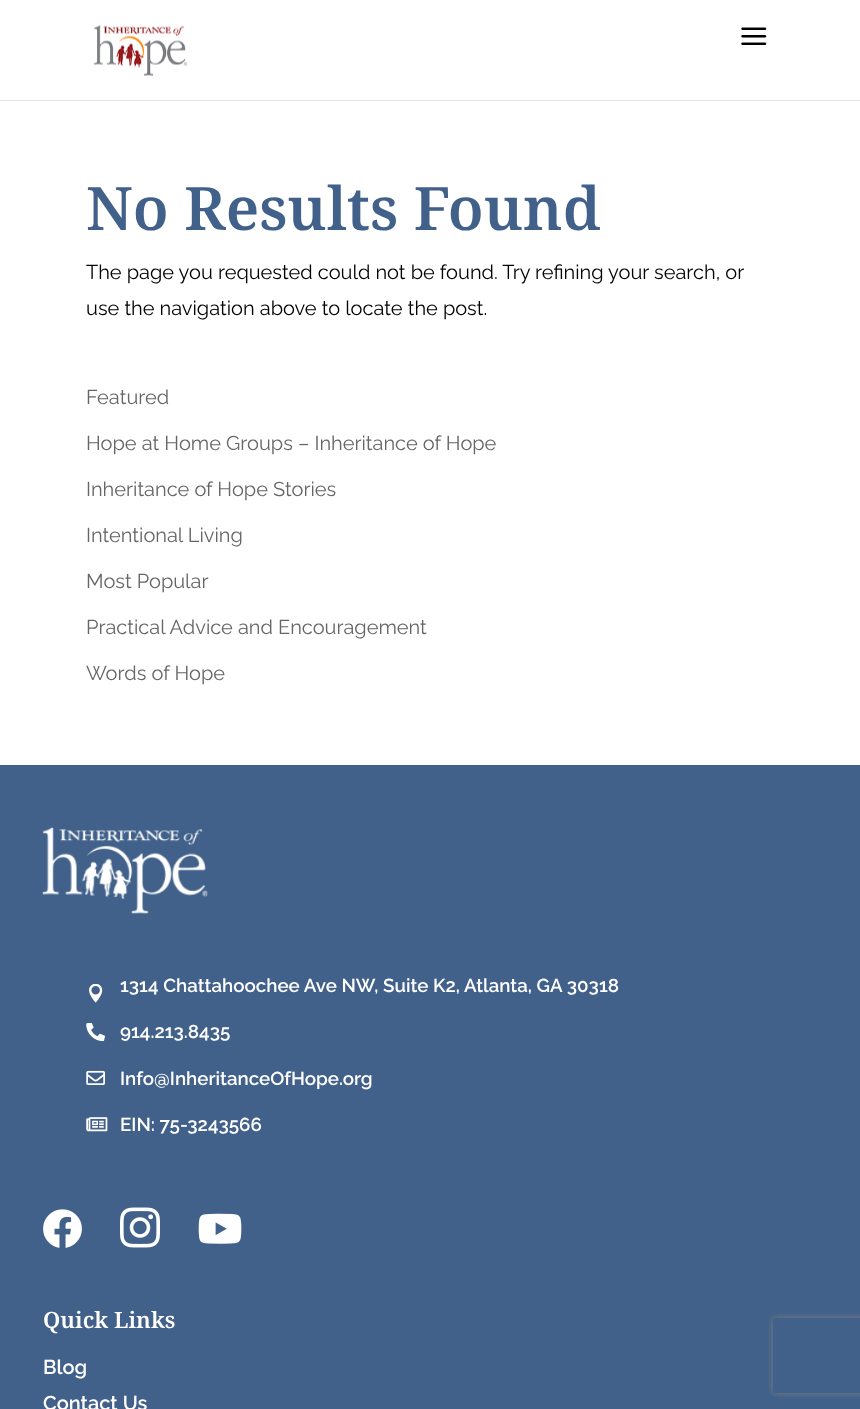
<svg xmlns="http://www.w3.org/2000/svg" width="860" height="1409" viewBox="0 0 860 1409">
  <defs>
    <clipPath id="clip1"><path d="M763 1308H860V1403H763ZM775.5 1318H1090.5C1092 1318 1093 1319 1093 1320.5V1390.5C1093 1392 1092 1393 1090.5 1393H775.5C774 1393 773 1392 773 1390.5V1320.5C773 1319 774 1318 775.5 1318Z" clip-rule="evenodd"/></clipPath>
  </defs>
  <rect width="100%" height="100%" fill="#fff"/>
  <path d="M0 100h860v1H0z" fill="#e6e6e6"/>
  <image x="93" y="25" width="95" height="51" href="img/1.png"/>
  <image x="741" y="27" width="26" height="18" href="img/2.png"/>
  <path d="M0 765h860v644H0z" fill="#41618a"/>
  <image x="42" y="827" width="166" height="87" href="img/3.png"/>
  <image x="89" y="984" width="14" height="19" href="img/4.png"/>
  <image x="86" y="1023" width="19" height="18" href="img/5.png"/>
  <image x="86" y="1070" width="19" height="15" href="img/6.png"/>
  <image x="86" y="1117" width="22" height="15" href="img/7.png"/>
  <image x="43" y="1209" width="39" height="39" href="img/8.png"/>
  <image x="120" y="1207" width="40" height="41" href="img/9.png"/>
  <image x="198" y="1213" width="44" height="31" href="img/10.png"/>
  <g clip-path="url(#clip1)">
    <rect x="773" y="1318" width="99" height="75" rx="2.5" fill="#808080" filter="blur(3px)"/>
  </g>
  <text x="86" y="230" font-family="Noto Serif" font-size="60" font-weight="600" fill="#41618a">No Results Found</text>
  <g font-family="Raleway" font-size="20" fill="#000">
    <text x="86" y="279">The page you requested could not be found. Try refining your search, or</text>
    <text x="86" y="315">use the navigation above to locate the post.</text>
  </g>
  <g font-family="Raleway" font-size="20" fill="#666">
    <text x="86" y="404">Featured</text>
    <text x="86" y="450">Hope at Home Groups – Inheritance of Hope</text>
    <text x="86" y="496">Inheritance of Hope Stories</text>
    <text x="86" y="542">Intentional Living</text>
    <text x="86" y="588">Most Popular</text>
    <text x="86" y="634">Practical Advice and Encouragement</text>
    <text x="86" y="680">Words of Hope</text>
  </g>
  <g font-family="Raleway" font-size="18.75" font-weight="600" fill="#fff">
    <text x="120" y="992">1314 Chattahoochee Ave NW, Suite K2, Atlanta, GA 30318</text>
    <text x="120" y="1038">914.213.8435</text>
    <text x="120" y="1085">Info@InheritanceOfHope.org</text>
    <text x="120" y="1131">EIN: 75-3243566</text>
  </g>
  <text x="43" y="1328" font-family="Noto Serif" font-size="22.5" font-weight="600" fill="#fff">Quick Links</text>
  <g font-family="Raleway" font-size="20" font-weight="600" fill="#fff">
    <text x="43" y="1374">Blog</text>
    <text x="43" y="1410">Contact Us</text>
  </g>
</svg>
